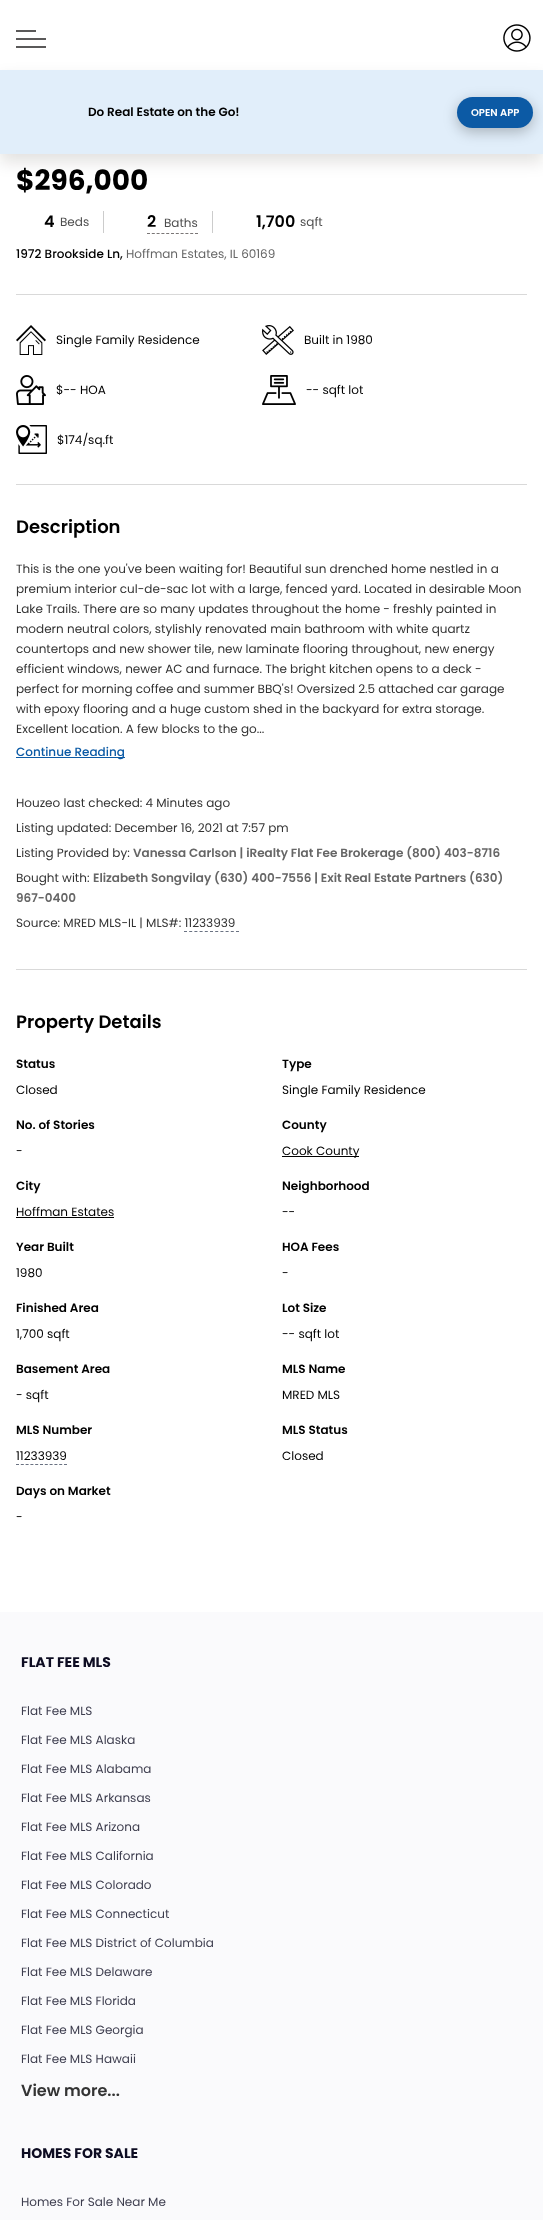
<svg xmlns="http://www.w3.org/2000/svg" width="543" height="2220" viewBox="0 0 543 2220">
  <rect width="100%" height="100%" fill="#fff"/>
  <path d="M16 30h20v2H16z" fill="#5a5959"/>
  <path d="M16 38h30v2H16z" fill="#5a5959"/>
  <path d="M16 46h30v2H16z" fill="#5a5959"/>
  <image x="503" y="24" width="28" height="28" href="img/1.png"/>
  <path d="M0 78h543v84H0z" fill="#1006001f" filter="blur(8px)"/>
  <path d="M0 70h543v84H0z" fill="#e1eefa"/>
  <rect x="457" y="101" width="76" height="31" rx="15.5" fill="#00000040" filter="blur(7px)"/>
  <rect x="457" y="97" width="76" height="31" rx="15.5" fill="#0c5aa5"/>
  <path d="M103 211h1v22H103z" fill="#ccc"/>
  <path d="M147 233.5H198" fill="none" stroke="#7a7676" stroke-dasharray="3 1.8"/>
  <path d="M212 211h1v22H212z" fill="#ccc"/>
  <path d="M16 294h511v1H16z" fill="#d9d9d9"/>
  <path d="M16 484h511v1H16z" fill="#d9d9d9"/>
  <image x="16" y="325" width="30" height="30" href="img/2.png"/>
  <image x="262" y="325" width="32" height="30" href="img/3.png"/>
  <image x="16" y="375" width="30" height="30" href="img/4.png"/>
  <image x="262" y="375" width="34" height="30" href="img/5.png"/>
  <image x="16" y="425" width="31" height="29" href="img/6.png"/>
  <path d="M16 969h511v1H16z" fill="#d9d9d9"/>
  <path d="M16 757h109v1H16z" fill="#0b5aa5"/>
  <path d="M184 931.5H239" fill="none" stroke="#6a7282" stroke-dasharray="3 2.2"/>
  <path d="M282 1156h77v1H282z" fill="#000"/>
  <path d="M16 1217h98v1H16z" fill="#000"/>
  <path d="M16 1464.5H67" fill="none" stroke="#6a7282" stroke-dasharray="3 1.8"/>
  <path d="M0 1612h543v608H0z" fill="#fafafc"/>
  <text x="88" y="116" font-family="Poppins" font-size="12" font-weight="600" fill="#000">Do Real Estate on the Go!</text>
  <text x="471" y="116" font-family="Poppins" font-size="10" font-weight="600" fill="#fff">OPEN APP</text>
  <text x="16" y="190" font-family="Poppins" font-size="28" font-weight="bold" fill="#000">$296,000</text>
  <text x="44" y="227" font-family="Poppins" font-size="16" font-weight="600" fill="#000">4</text>
  <text x="60" y="226" font-family="Poppins" font-size="12" fill="#4d4d4d">Beds</text>
  <text x="147" y="227" font-family="Poppins" font-size="16" font-weight="600" fill="#000">2</text>
  <text x="164" y="227" font-family="Poppins" font-size="12" fill="#4d4d4d">Baths</text>
  <text x="256" y="227" font-family="Poppins" font-size="16" font-weight="600" fill="#000">1,700</text>
  <text x="300" y="226" font-family="Poppins" font-size="12" fill="#4d4d4d">sqft</text>
  <text x="16" y="258" font-family="Poppins" font-size="12" font-weight="500" fill="#000">1972 Brookside Ln,</text>
  <text x="126" y="258" font-family="Poppins" font-size="12" fill="#666">Hoffman Estates, IL 60169</text>
  <g font-family="Poppins" font-size="12" fill="#000">
    <text x="56" y="344">Single Family Residence</text>
    <text x="304" y="344">Built in 1980</text>
    <text x="56" y="394">$-- HOA</text>
    <text x="306" y="394">-- sqft lot</text>
    <text x="57" y="444">$174/sq.ft</text>
  </g>
  <text x="16" y="533" font-family="Poppins" font-size="18" font-weight="600" fill="#000">Description</text>
  <g font-family="Poppins" font-size="12" fill="#333">
    <text x="16" y="573">This is the one you've been waiting for! Beautiful sun drenched home nestled in a</text>
    <text x="16" y="593">premium interior cul-de-sac lot with a large, fenced yard. Located in desirable Moon</text>
    <text x="16" y="613">Lake Trails. There are so many updates throughout the home - freshly painted in</text>
    <text x="16" y="633">modern neutral colors, stylishly renovated main bathroom with white quartz</text>
    <text x="16" y="653">countertops and new shower tile, new laminate flooring throughout, new energy</text>
    <text x="16" y="673">efficient windows, newer AC and furnace. The bright kitchen opens to a deck -</text>
    <text x="16" y="693">perfect for morning coffee and summer BBQ's! Oversized 2.5 attached car garage</text>
    <text x="16" y="713">with epoxy flooring and a huge custom shed in the backyard for extra storage.</text>
    <text x="16" y="733">Excellent location. A few blocks to the go...</text>
  </g>
  <text x="16" y="756" font-family="Poppins" font-size="12" font-weight="500" fill="#0b5aa5">Continue Reading</text>
  <g font-family="Poppins" font-size="12" fill="#333">
    <text x="16" y="807">Houzeo last checked: 4 Minutes ago</text>
    <text x="16" y="832">Listing updated: December 16, 2021 at 7:57 pm</text>
    <text x="16" y="857">Listing Provided by:</text>
  </g>
  <text x="133" y="857" font-family="Poppins" font-size="12" font-weight="600" fill="#666">Vanessa Carlson | iRealty Flat Fee Brokerage (800) 403-8716</text>
  <text x="16" y="882" font-family="Poppins" font-size="12" fill="#333">Bought with:</text>
  <g font-family="Poppins" font-size="12" font-weight="600" fill="#666">
    <text x="93" y="882">Elizabeth Songvilay (630) 400-7556 | Exit Real Estate Partners (630)</text>
    <text x="16" y="902">967-0400</text>
  </g>
  <text x="16" y="927" font-family="Poppins" font-size="12" fill="#333">Source: MRED MLS-IL | MLS#: 11233939</text>
  <text x="16" y="1028" font-family="Poppins" font-size="18" font-weight="600" fill="#000">Property Details</text>
  <text x="16" y="1068" font-family="Poppins" font-size="12" font-weight="600" fill="#000">Status</text>
  <text x="16" y="1094" font-family="Poppins" font-size="12" fill="#000">Closed</text>
  <text x="282" y="1068" font-family="Poppins" font-size="12" font-weight="600" fill="#000">Type</text>
  <text x="282" y="1094" font-family="Poppins" font-size="12" fill="#000">Single Family Residence</text>
  <text x="16" y="1129" font-family="Poppins" font-size="12" font-weight="600" fill="#000">No. of Stories</text>
  <text x="16" y="1155" font-family="Poppins" font-size="12" fill="#000">-</text>
  <text x="282" y="1129" font-family="Poppins" font-size="12" font-weight="600" fill="#000">County</text>
  <text x="282" y="1155" font-family="Poppins" font-size="12" fill="#000">Cook County</text>
  <text x="16" y="1190" font-family="Poppins" font-size="12" font-weight="600" fill="#000">City</text>
  <text x="16" y="1216" font-family="Poppins" font-size="12" fill="#000">Hoffman Estates</text>
  <text x="282" y="1190" font-family="Poppins" font-size="12" font-weight="600" fill="#000">Neighborhood</text>
  <text x="282" y="1216" font-family="Poppins" font-size="12" fill="#000">--</text>
  <text x="16" y="1251" font-family="Poppins" font-size="12" font-weight="600" fill="#000">Year Built</text>
  <text x="16" y="1277" font-family="Poppins" font-size="12" fill="#000">1980</text>
  <text x="282" y="1251" font-family="Poppins" font-size="12" font-weight="600" fill="#000">HOA Fees</text>
  <text x="282" y="1277" font-family="Poppins" font-size="12" fill="#000">-</text>
  <text x="16" y="1312" font-family="Poppins" font-size="12" font-weight="600" fill="#000">Finished Area</text>
  <text x="16" y="1338" font-family="Poppins" font-size="12" fill="#000">1,700 sqft</text>
  <text x="282" y="1312" font-family="Poppins" font-size="12" font-weight="600" fill="#000">Lot Size</text>
  <text x="282" y="1338" font-family="Poppins" font-size="12" fill="#000">-- sqft lot</text>
  <text x="16" y="1373" font-family="Poppins" font-size="12" font-weight="600" fill="#000">Basement Area</text>
  <text x="16" y="1399" font-family="Poppins" font-size="12" fill="#000">- sqft</text>
  <text x="282" y="1373" font-family="Poppins" font-size="12" font-weight="600" fill="#000">MLS Name</text>
  <text x="282" y="1399" font-family="Poppins" font-size="12" fill="#000">MRED MLS</text>
  <text x="16" y="1434" font-family="Poppins" font-size="12" font-weight="600" fill="#000">MLS Number</text>
  <text x="16" y="1460" font-family="Poppins" font-size="12" fill="#000">11233939</text>
  <text x="282" y="1434" font-family="Poppins" font-size="12" font-weight="600" fill="#000">MLS Status</text>
  <text x="282" y="1460" font-family="Poppins" font-size="12" fill="#000">Closed</text>
  <text x="16" y="1495" font-family="Poppins" font-size="12" font-weight="600" fill="#000">Days on Market</text>
  <text x="16" y="1521" font-family="Poppins" font-size="12" fill="#000">-</text>
  <text x="21" y="1667" font-family="Poppins" font-size="14" font-weight="bold" fill="#0d0c22">FLAT FEE MLS</text>
  <g font-family="Poppins" font-size="12" fill="#3d3d4e">
    <text x="21" y="1715">Flat Fee MLS</text>
    <text x="21" y="1744">Flat Fee MLS Alaska</text>
    <text x="21" y="1773">Flat Fee MLS Alabama</text>
    <text x="21" y="1802">Flat Fee MLS Arkansas</text>
    <text x="21" y="1831">Flat Fee MLS Arizona</text>
    <text x="21" y="1860">Flat Fee MLS California</text>
    <text x="21" y="1889">Flat Fee MLS Colorado</text>
    <text x="21" y="1918">Flat Fee MLS Connecticut</text>
    <text x="21" y="1947">Flat Fee MLS District of Columbia</text>
    <text x="21" y="1976">Flat Fee MLS Delaware</text>
    <text x="21" y="2005">Flat Fee MLS Florida</text>
    <text x="21" y="2034">Flat Fee MLS Georgia</text>
    <text x="21" y="2063">Flat Fee MLS Hawaii</text>
  </g>
  <text x="21" y="2096" font-family="Poppins" font-size="16" font-weight="600" fill="#333">View more...</text>
  <text x="21" y="2158" font-family="Poppins" font-size="14" font-weight="bold" fill="#0d0c22">HOMES FOR SALE</text>
  <text x="21" y="2206" font-family="Poppins" font-size="12" fill="#3d3d4e">Homes For Sale Near Me</text>
</svg>
